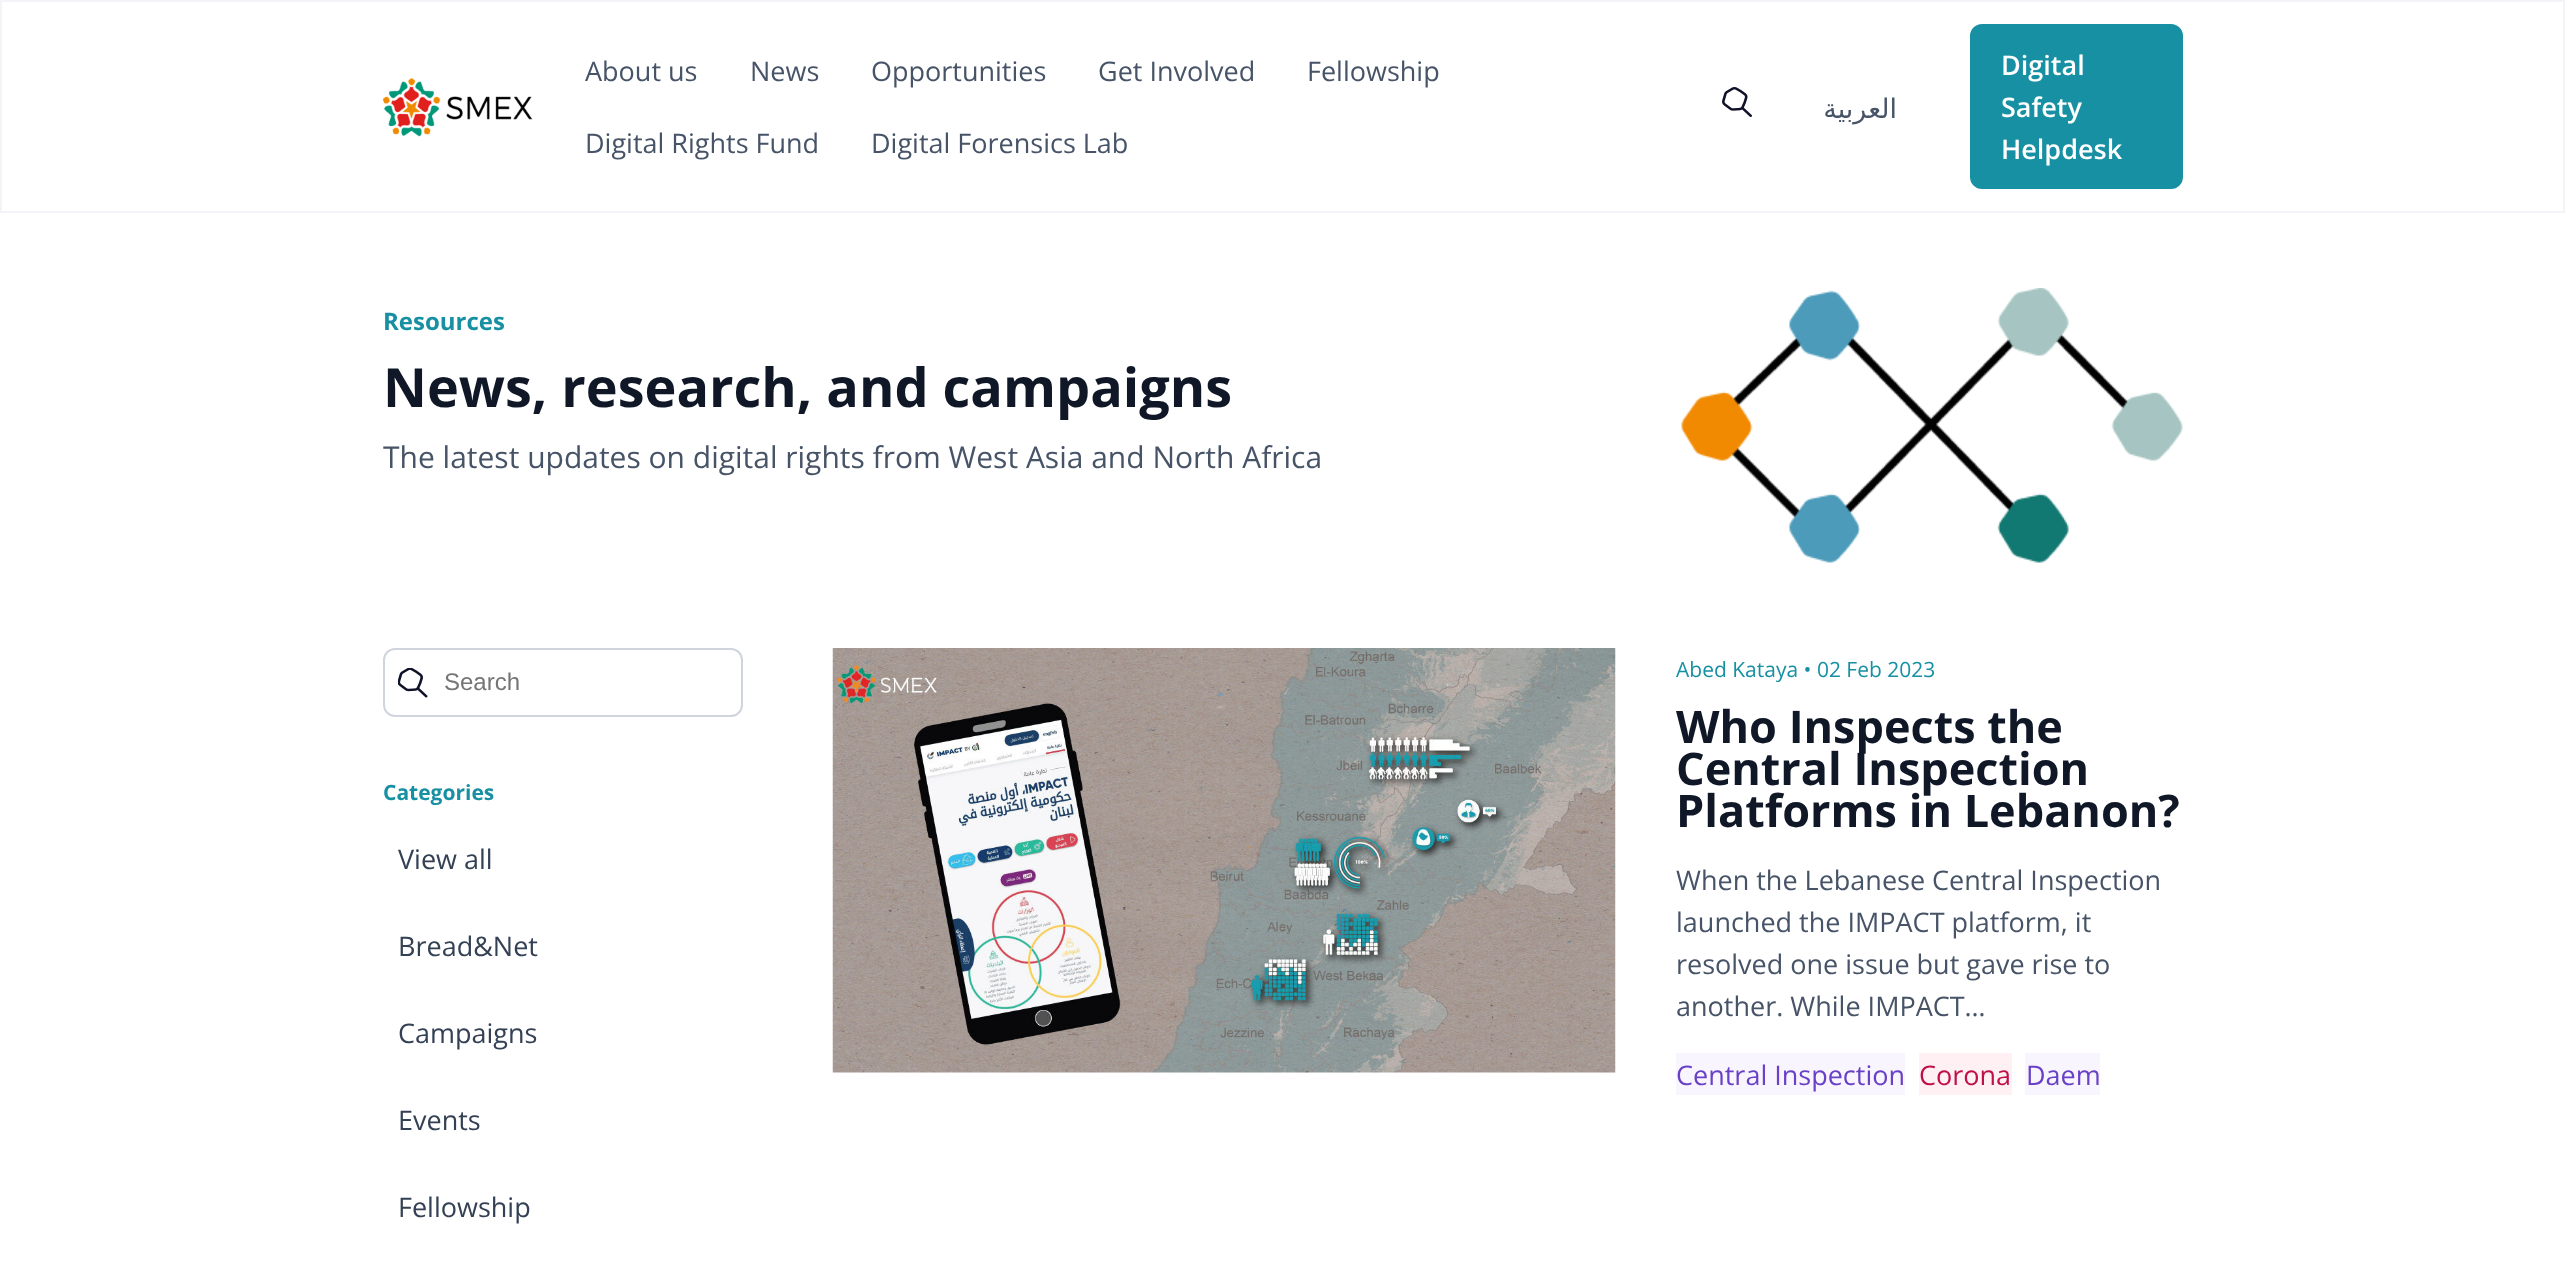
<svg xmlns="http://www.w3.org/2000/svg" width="2565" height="1264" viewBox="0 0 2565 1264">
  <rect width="100%" height="100%" fill="#fff"/>
  <path d="M1 1h2563v211H1z" fill="none" stroke="#f2f4f7" stroke-width="2"/>
  <image x="382" y="78" width="151" height="59" href="img/1.png"/>
  <image x="1722" y="87" width="30" height="30" href="img/2.png"/>
  <rect x="1971" y="25" width="211" height="163" rx="11" fill="#1890a3" stroke="#1890a3" stroke-width="2"/>
  <image x="1681" y="288" width="502" height="275" href="img/3.png"/>
  <rect x="384" y="649" width="358" height="67" rx="11" fill="none" stroke="#d0d5dd" stroke-width="2"/>
  <image x="398" y="668" width="30" height="30" href="img/4.png"/>
  <image x="832" y="648" width="784" height="425" href="img/5.png"/>
  <path d="M1676 1053h229v42H1676z" fill="#f9f5ff"/>
  <path d="M1919 1053h93v42H1919z" fill="#fff1f3"/>
  <path d="M2025 1053h75v42H2025z" fill="#f9f5ff"/>
  <g font-family="Open Sans" font-size="27" fill="#475467">
    <text x="585" y="81">About us</text>
    <text x="750" y="81">News</text>
    <text x="871" y="81">Opportunities</text>
    <text x="1098" y="81">Get Involved</text>
    <text x="1307" y="81">Fellowship</text>
    <text x="585" y="153">Digital Rights Fund</text>
    <text x="871" y="153">Digital Forensics Lab</text>
  </g>
  <text x="1897" y="118" font-family="DejaVu Sans" font-size="27" direction="rtl" fill="#475467">العربية</text>
  <g font-family="Open Sans" font-size="27" font-weight="600" fill="#fff">
    <text x="2001" y="75">Digital</text>
    <text x="2001" y="117">Safety</text>
    <text x="2001" y="159">Helpdesk</text>
  </g>
  <text x="383" y="330" font-family="Open Sans" font-size="24" font-weight="bold" fill="#1890a3">Resources</text>
  <text x="383" y="407" font-family="Open Sans" font-size="54" font-weight="bold" fill="#101828">News, research, and campaigns</text>
  <text x="383" y="468" font-family="Open Sans" font-size="30" fill="#475467">The latest updates on digital rights from West Asia and North Africa</text>
  <text x="444" y="690" font-family="Liberation Sans" font-size="24" fill="#757575">Search</text>
  <text x="383" y="800" font-family="Open Sans" font-size="21" font-weight="bold" fill="#1890a3">Categories</text>
  <g font-family="Open Sans" font-size="27" fill="#344054">
    <text x="398" y="869">View all</text>
    <text x="398" y="956">Bread&amp;Net</text>
    <text x="398" y="1043">Campaigns</text>
    <text x="398" y="1130">Events</text>
    <text x="398" y="1217">Fellowship</text>
  </g>
  <text x="1676" y="677" font-family="Open Sans" font-size="21" fill="#1890a3">Abed Kataya • 02 Feb 2023</text>
  <g font-family="Open Sans" font-size="45" font-weight="bold" fill="#101828">
    <text x="1676" y="743">Who Inspects the</text>
    <text x="1676" y="785">Central Inspection</text>
    <text x="1676" y="827">Platforms in Lebanon?</text>
  </g>
  <g font-family="Open Sans" font-size="27" fill="#475467">
    <text x="1676" y="890">When the Lebanese Central Inspection</text>
    <text x="1676" y="932">launched the IMPACT platform, it</text>
    <text x="1676" y="974">resolved one issue but gave rise to</text>
    <text x="1676" y="1016">another. While IMPACT…</text>
  </g>
  <text x="1676" y="1085" font-family="Open Sans" font-size="27" fill="#6941c6">Central Inspection</text>
  <text x="1919" y="1085" font-family="Open Sans" font-size="27" fill="#c01048">Corona</text>
  <text x="2026" y="1085" font-family="Open Sans" font-size="27" fill="#6941c6">Daem</text>
</svg>
